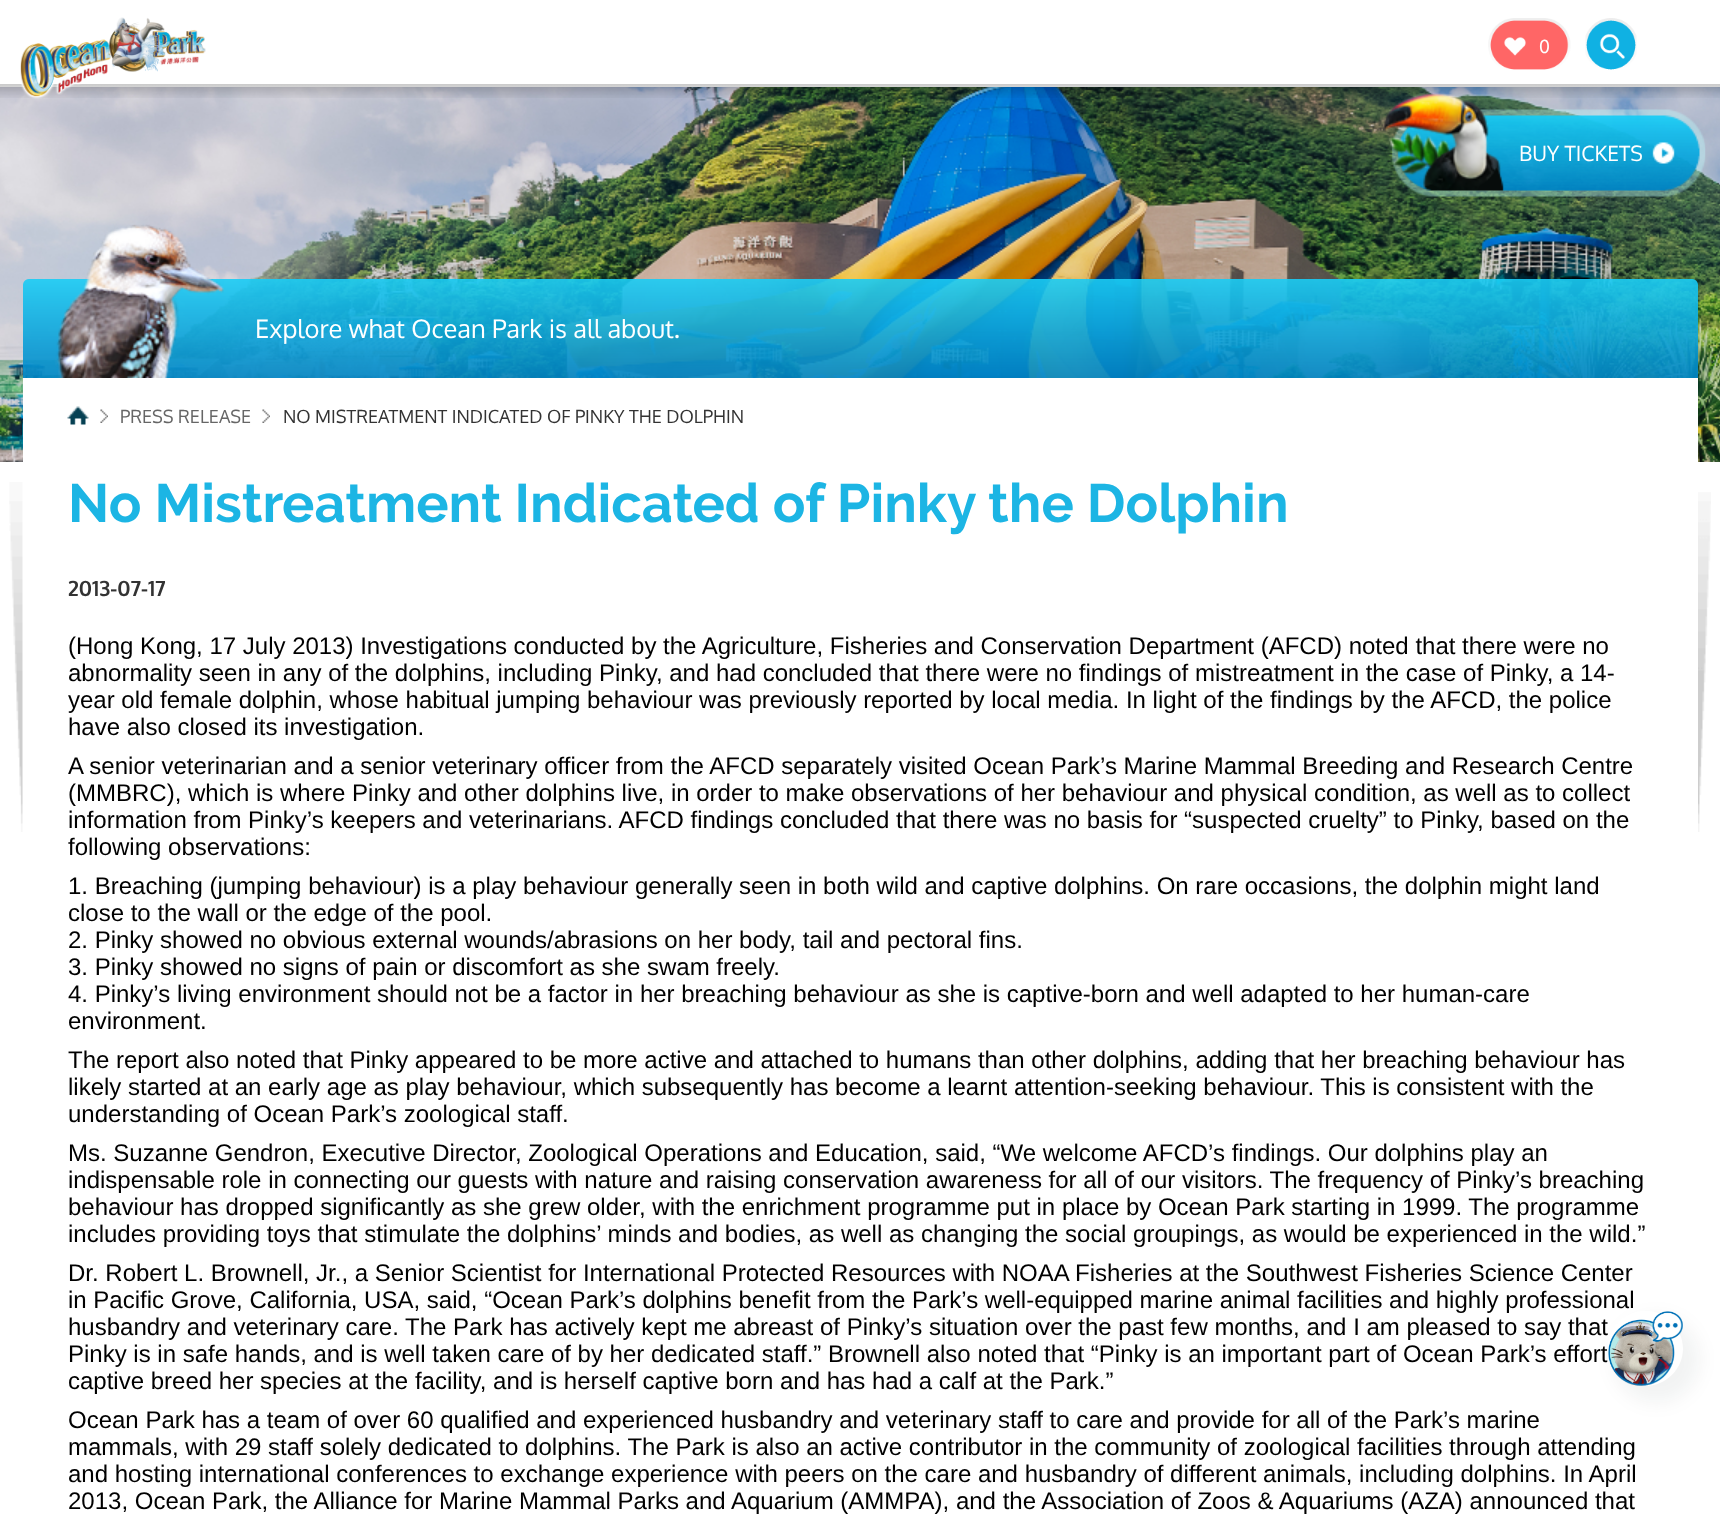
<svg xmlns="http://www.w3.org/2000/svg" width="1720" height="1520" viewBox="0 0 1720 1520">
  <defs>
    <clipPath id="clip1"><path d="M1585 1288H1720V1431H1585ZM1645.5 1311C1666 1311 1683 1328 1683 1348.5C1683 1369 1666 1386 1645.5 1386C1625 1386 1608 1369 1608 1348.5C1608 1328 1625 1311 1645.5 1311Z" clip-rule="evenodd"/></clipPath>
  </defs>
  <rect width="100%" height="100%" fill="#fff"/>
  <image x="0" y="87" width="1720" height="375" href="img/6.png"/>
  <image x="0" y="84" width="1720" height="14" href="img/4.png"/>
  <image x="20" y="17" width="186" height="82" href="img/1.png"/>
  <image x="1488" y="18" width="83" height="52" href="img/2.png"/>
  <image x="1585" y="18" width="52" height="52" href="img/3.png"/>
  <image x="1382" y="92" width="324" height="105" href="img/5.png"/>
  <image x="55" y="224" width="169" height="154" href="img/7.png"/>
  <image x="9" y="482" width="14" height="350" href="img/8.png"/>
  <path d="M23 378h1675v84H23z" fill="#fff"/>
  <image x="67" y="406" width="22" height="19" href="img/9.png"/>
  <image x="100" y="409" width="8" height="14" href="img/10.png"/>
  <image x="262" y="409" width="8" height="14" href="img/11.png"/>
  <image x="1698" y="492" width="13" height="340" href="img/12.png"/>
  <g clip-path="url(#clip1)">
    <rect x="1613" y="1316" width="87" height="87" rx="43.5" fill="#0219190d" filter="blur(9px)"/>
  </g>
  <text x="1539" y="53" font-family="Oxygen" font-size="18" fill="#fff">0</text>
  <text x="1519" y="161" font-family="Oxygen" font-size="21" fill="#fff">BUY TICKETS</text>
  <text x="255" y="338" font-family="Oxygen" font-size="25.5" fill="#fff">Explore what Ocean Park is all about.</text>
  <text x="120" y="423" font-family="Oxygen" font-size="18" fill="#666">PRESS RELEASE</text>
  <text x="283" y="423" font-family="Oxygen" font-size="18" fill="#333">NO MISTREATMENT INDICATED OF PINKY THE DOLPHIN</text>
  <text x="68" y="522" font-family="Raleway" font-size="54" font-weight="bold" fill="#1cb5e4">No Mistreatment Indicated of Pinky the Dolphin</text>
  <text x="68" y="596" font-family="Oxygen" font-size="21" font-weight="bold" fill="#333">2013-07-17</text>
  <g font-family="Liberation Sans" font-size="24" fill="#000">
    <text x="68" y="654">(Hong Kong, 17 July 2013) Investigations conducted by the Agriculture, Fisheries and Conservation Department (AFCD) noted that there were no</text>
    <text x="68" y="681">abnormality seen in any of the dolphins, including Pinky, and had concluded that there were no findings of mistreatment in the case of Pinky, a 14-</text>
    <text x="68" y="708">year old female dolphin, whose habitual jumping behaviour was previously reported by local media. In light of the findings by the AFCD, the police</text>
    <text x="68" y="735">have also closed its investigation.</text>
    <text x="68" y="774">A senior veterinarian and a senior veterinary officer from the AFCD separately visited Ocean Park’s Marine Mammal Breeding and Research Centre</text>
    <text x="68" y="801">(MMBRC), which is where Pinky and other dolphins live, in order to make observations of her behaviour and physical condition, as well as to collect</text>
    <text x="68" y="828">information from Pinky’s keepers and veterinarians. AFCD findings concluded that there was no basis for “suspected cruelty” to Pinky, based on the</text>
    <text x="68" y="855">following observations:</text>
    <text x="68" y="894">1. Breaching (jumping behaviour) is a play behaviour generally seen in both wild and captive dolphins. On rare occasions, the dolphin might land</text>
    <text x="68" y="921">close to the wall or the edge of the pool.</text>
    <text x="68" y="948">2. Pinky showed no obvious external wounds/abrasions on her body, tail and pectoral fins.</text>
    <text x="68" y="975">3. Pinky showed no signs of pain or discomfort as she swam freely.</text>
    <text x="68" y="1002">4. Pinky’s living environment should not be a factor in her breaching behaviour as she is captive-born and well adapted to her human-care</text>
    <text x="68" y="1029">environment.</text>
    <text x="68" y="1068">The report also noted that Pinky appeared to be more active and attached to humans than other dolphins, adding that her breaching behaviour has</text>
    <text x="68" y="1095">likely started at an early age as play behaviour, which subsequently has become a learnt attention-seeking behaviour. This is consistent with the</text>
    <text x="68" y="1122">understanding of Ocean Park’s zoological staff.</text>
    <text x="68" y="1161">Ms. Suzanne Gendron, Executive Director, Zoological Operations and Education, said, “We welcome AFCD’s findings. Our dolphins play an</text>
    <text x="68" y="1188">indispensable role in connecting our guests with nature and raising conservation awareness for all of our visitors. The frequency of Pinky’s breaching</text>
    <text x="68" y="1215">behaviour has dropped significantly as she grew older, with the enrichment programme put in place by Ocean Park starting in 1999. The programme</text>
    <text x="68" y="1242">includes providing toys that stimulate the dolphins’ minds and bodies, as well as changing the social groupings, as would be experienced in the wild.”</text>
    <text x="68" y="1281">Dr. Robert L. Brownell, Jr., a Senior Scientist for International Protected Resources with NOAA Fisheries at the Southwest Fisheries Science Center</text>
    <text x="68" y="1308">in Pacific Grove, California, USA, said, “Ocean Park’s dolphins benefit from the Park’s well-equipped marine animal facilities and highly professional</text>
    <text x="68" y="1335">husbandry and veterinary care. The Park has actively kept me abreast of Pinky’s situation over the past few months, and I am pleased to say that</text>
    <text x="68" y="1362">Pinky is in safe hands, and is well taken care of by her dedicated staff.” Brownell also noted that “Pinky is an important part of Ocean Park’s effort</text>
    <text x="68" y="1389">captive breed her species at the facility, and is herself captive born and has had a calf at the Park.”</text>
    <text x="68" y="1428">Ocean Park has a team of over 60 qualified and experienced husbandry and veterinary staff to care and provide for all of the Park’s marine</text>
    <text x="68" y="1455">mammals, with 29 staff solely dedicated to dolphins. The Park is also an active contributor in the community of zoological facilities through attending</text>
    <text x="68" y="1482">and hosting international conferences to exchange experience with peers on the care and husbandry of different animals, including dolphins. In April</text>
    <text x="68" y="1509">2013, Ocean Park, the Alliance for Marine Mammal Parks and Aquarium (AMMPA), and the Association of Zoos &amp; Aquariums (AZA) announced that</text>
  </g>
  <image x="1608" y="1311" width="75" height="75" href="img/13.png"/>
</svg>
